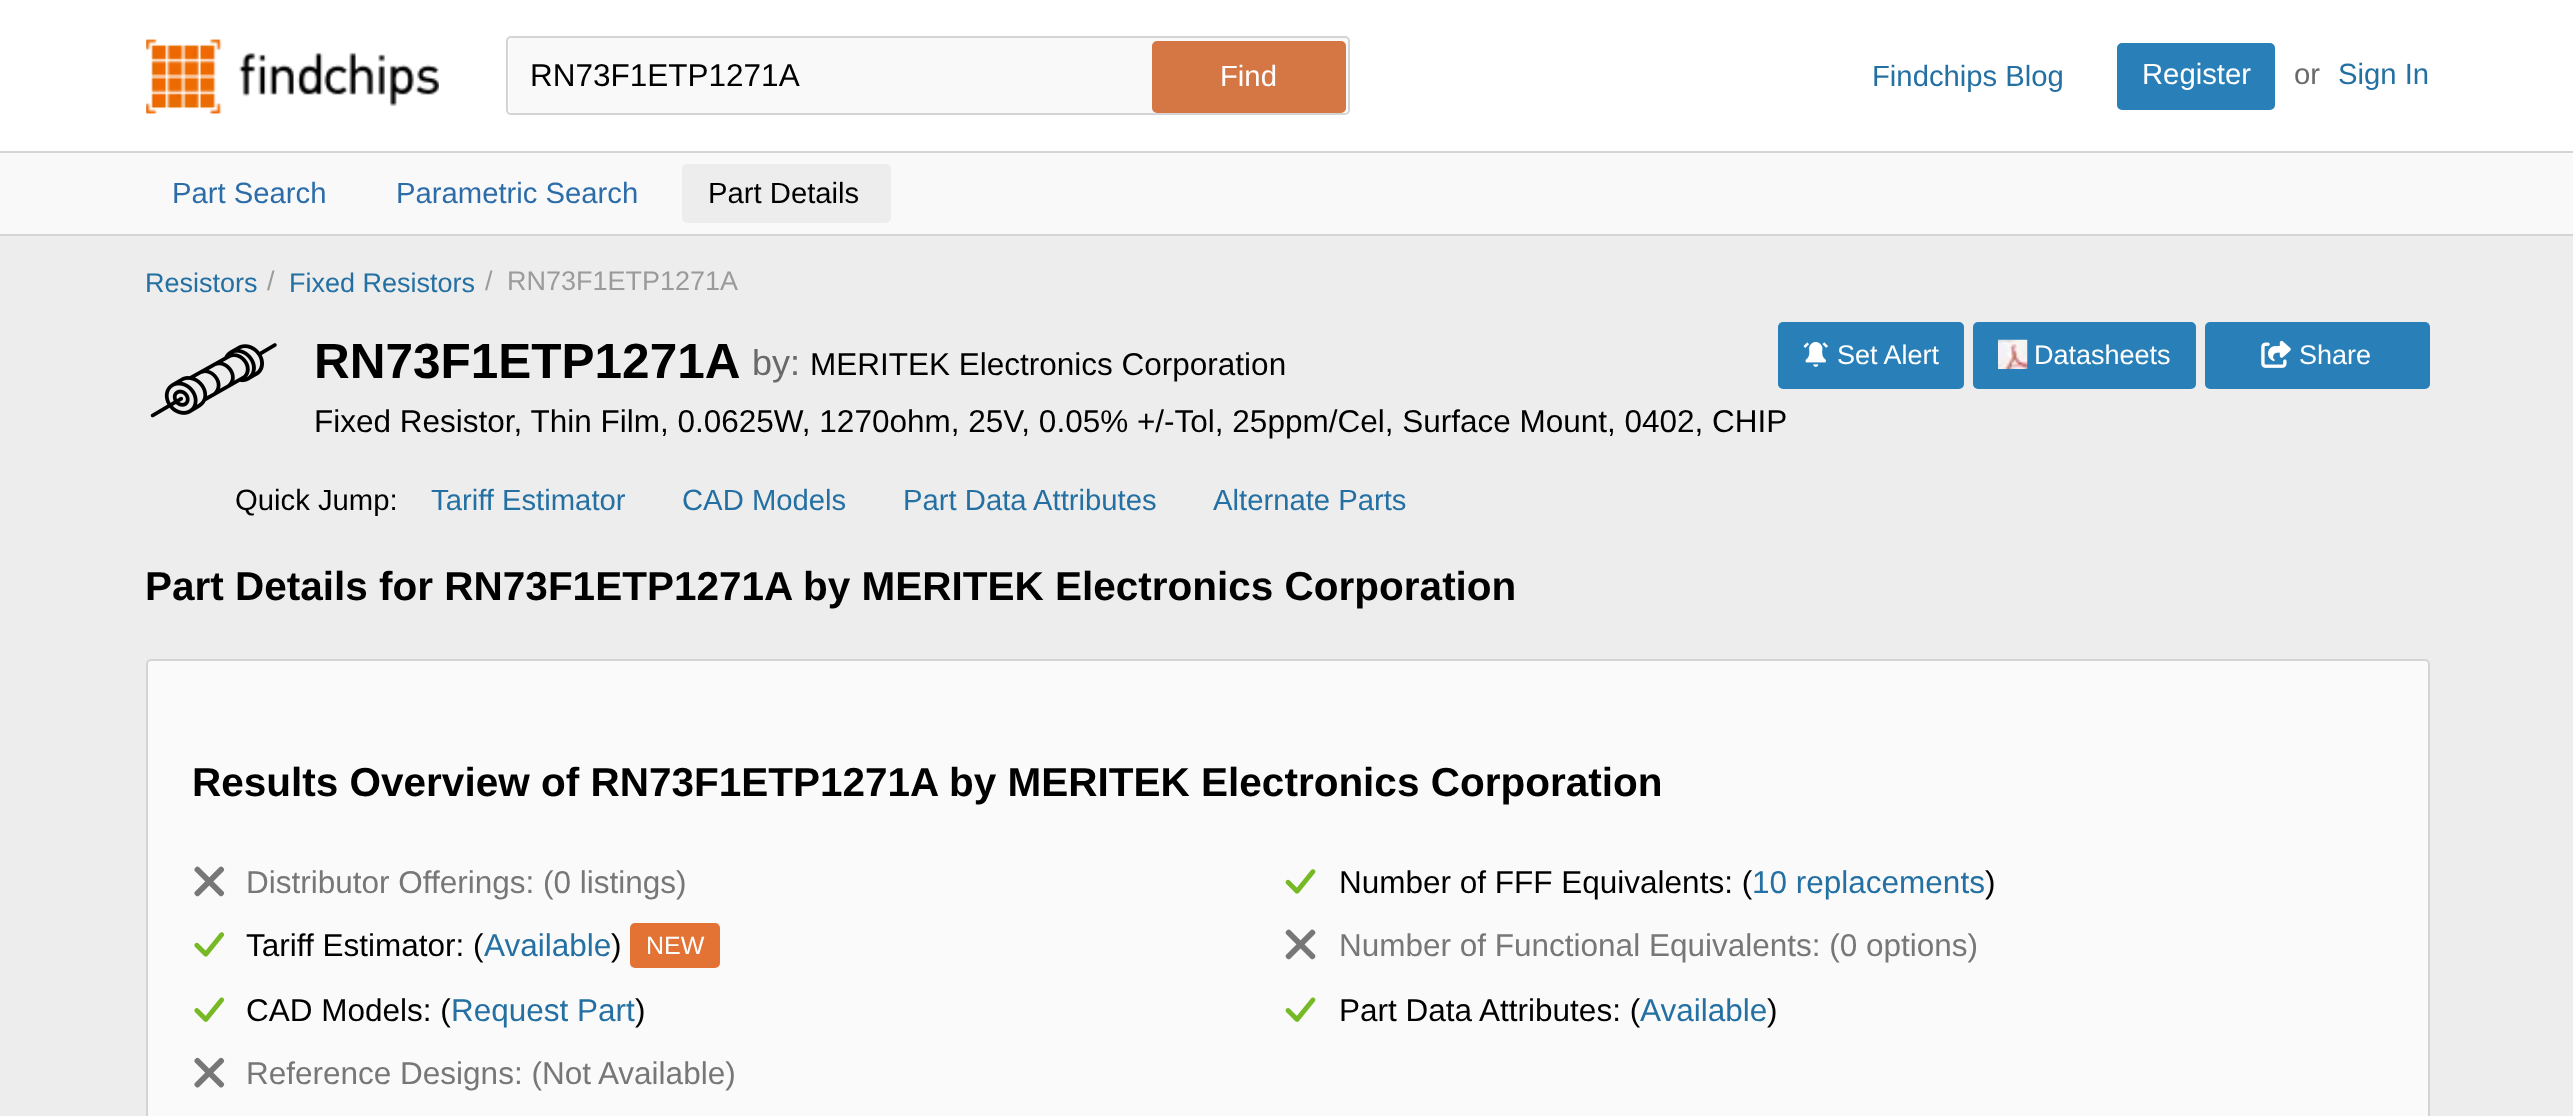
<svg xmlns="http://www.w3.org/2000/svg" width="2573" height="1116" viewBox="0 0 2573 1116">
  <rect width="100%" height="100%" fill="#ededed"/>
  <path d="M0 0h2573v151H0z" fill="#fff"/>
  <path d="M0 234h2573v2H0z" fill="#d4d4d4"/>
  <image x="146" y="39" width="293" height="75" href="img/1.png"/>
  <rect x="507" y="37" width="842" height="77" rx="4" fill="none" stroke="#d4d4d4" stroke-width="2"/>
  <rect x="509" y="38" width="839" height="75" rx="5" fill="#f9f9f9"/>
  <rect x="1153" y="42" width="192" height="70" rx="4" fill="#d57744" stroke="#d57744" stroke-width="2"/>
  <rect x="2118" y="44" width="156" height="65" rx="4" fill="#2980b9" stroke="#2980b9" stroke-width="2"/>
  <path d="M0 153h2573v81H0z" fill="#f9f9f9"/>
  <path d="M0 151h2573v2H0z" fill="#d4d4d4"/>
  <rect x="682" y="164" width="209" height="59" rx="5" fill="#ededed"/>
  <image x="150" y="343" width="127" height="75" href="img/2.png"/>
  <rect x="1779" y="323" width="184" height="65" rx="4" fill="#2980b9" stroke="#2980b9" stroke-width="2"/>
  <image x="1803" y="342" width="25" height="25" href="img/3.png"/>
  <rect x="1974" y="323" width="221" height="65" rx="4" fill="#2980b9" stroke="#2980b9" stroke-width="2"/>
  <image x="1998" y="339" width="30" height="30" href="img/4.png"/>
  <rect x="2206" y="323" width="223" height="65" rx="4" fill="#2980b9" stroke="#2980b9" stroke-width="2"/>
  <image x="2261" y="340" width="30" height="28" href="img/5.png"/>
  <rect x="147" y="660" width="2282" height="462" rx="4" fill="#fafafa" stroke="#d4d4d4" stroke-width="2"/>
  <image x="194" y="866" width="31" height="31" href="img/6.png"/>
  <image x="1285" y="869" width="31" height="25" href="img/7.png"/>
  <image x="194" y="932" width="31" height="25" href="img/8.png"/>
  <rect x="630" y="923" width="90" height="45" rx="5" fill="#e37235"/>
  <image x="1285" y="929" width="31" height="31" href="img/9.png"/>
  <image x="194" y="997" width="31" height="25" href="img/10.png"/>
  <image x="1285" y="997" width="31" height="25" href="img/11.png"/>
  <image x="194" y="1057" width="31" height="31" href="img/12.png"/>
  <text x="530" y="86" font-family="Liberation Sans" font-size="31.5" fill="#000">RN73F1ETP1271A</text>
  <text x="1220" y="86" font-family="Liberation Sans" font-size="29.25" fill="#fff">Find</text>
  <text x="1872" y="86" font-family="Liberation Sans" font-size="29.25" fill="#2470a3">Findchips Blog</text>
  <text x="2142" y="84" font-family="Liberation Sans" font-size="29.25" fill="#fff">Register</text>
  <text x="2294" y="84" font-family="Liberation Sans" font-size="29.25" fill="#696969">or</text>
  <text x="2338" y="84" font-family="Liberation Sans" font-size="29.25" fill="#2470a3">Sign In</text>
  <g font-family="Liberation Sans" font-size="29.25" fill="#2c6da9">
    <text x="172" y="203">Part Search</text>
    <text x="396" y="203">Parametric Search</text>
  </g>
  <text x="708" y="203" font-family="Liberation Sans" font-size="29.25" fill="#000">Part Details</text>
  <text x="145" y="292" font-family="Liberation Sans" font-size="27" fill="#2470a3">Resistors</text>
  <text x="267" y="290" font-family="Liberation Sans" font-size="27" fill="#9b9b9b">/</text>
  <text x="289" y="292" font-family="Liberation Sans" font-size="27" fill="#2470a3">Fixed Resistors</text>
  <g font-family="Liberation Sans" font-size="27" fill="#9b9b9b">
    <text x="485" y="290">/</text>
    <text x="507" y="290">RN73F1ETP1271A</text>
  </g>
  <text x="314" y="378" font-family="Liberation Sans" font-size="49.5" font-weight="bold" fill="#000">RN73F1ETP1271A</text>
  <text x="752" y="375" font-family="Liberation Sans" font-size="36" fill="#696969">by:</text>
  <text x="810" y="375" font-family="Liberation Sans" font-size="31.5" fill="#000">MERITEK Electronics Corporation</text>
  <g font-family="Liberation Sans" font-size="27" fill="#fff">
    <text x="1837" y="364">Set Alert</text>
    <text x="2034" y="364">Datasheets</text>
    <text x="2299" y="364">Share</text>
  </g>
  <text x="314" y="432" font-family="Liberation Sans" font-size="31.5" fill="#000">Fixed Resistor, Thin Film, 0.0625W, 1270ohm, 25V, 0.05% +/-Tol, 25ppm/Cel, Surface Mount, 0402, CHIP</text>
  <text x="235" y="510" font-family="Liberation Sans" font-size="29.25" fill="#000">Quick Jump:</text>
  <g font-family="Liberation Sans" font-size="29.25" fill="#2470a3">
    <text x="431" y="510">Tariff Estimator</text>
    <text x="682" y="510">CAD Models</text>
    <text x="903" y="510">Part Data Attributes</text>
    <text x="1213" y="510">Alternate Parts</text>
  </g>
  <g font-family="Liberation Sans" font-size="40.5" font-weight="bold" fill="#000">
    <text x="145" y="600">Part Details for RN73F1ETP1271A by MERITEK Electronics Corporation</text>
    <text x="192" y="796">Results Overview of RN73F1ETP1271A by MERITEK Electronics Corporation</text>
  </g>
  <text x="246" y="893" font-family="Liberation Sans" font-size="31.5" fill="#777">Distributor Offerings: (0 listings)</text>
  <text x="1339" y="893" font-family="Liberation Sans" font-size="31.5" fill="#000">Number of FFF Equivalents: (</text>
  <text x="1752" y="893" font-family="Liberation Sans" font-size="31.5" fill="#2470a3">10 replacements</text>
  <g font-family="Liberation Sans" font-size="31.5" fill="#000">
    <text x="1985" y="893">)</text>
    <text x="246" y="956">Tariff Estimator: (</text>
  </g>
  <text x="484" y="956" font-family="Liberation Sans" font-size="31.5" fill="#2470a3">Available</text>
  <text x="611" y="956" font-family="Liberation Sans" font-size="31.5" fill="#000">)</text>
  <text x="646" y="954" font-family="Liberation Sans" font-size="25" fill="#fff">NEW</text>
  <text x="1339" y="956" font-family="Liberation Sans" font-size="31.5" fill="#777">Number of Functional Equivalents: (0 options)</text>
  <text x="246" y="1021" font-family="Liberation Sans" font-size="31.5" fill="#000">CAD Models: (</text>
  <text x="451" y="1021" font-family="Liberation Sans" font-size="31.5" fill="#2470a3">Request Part</text>
  <g font-family="Liberation Sans" font-size="31.5" fill="#000">
    <text x="635" y="1021">)</text>
    <text x="1339" y="1021">Part Data Attributes: (</text>
  </g>
  <text x="1640" y="1021" font-family="Liberation Sans" font-size="31.5" fill="#2470a3">Available</text>
  <text x="1767" y="1021" font-family="Liberation Sans" font-size="31.5" fill="#000">)</text>
  <text x="246" y="1084" font-family="Liberation Sans" font-size="31.5" fill="#777">Reference Designs: (Not Available)</text>
</svg>
